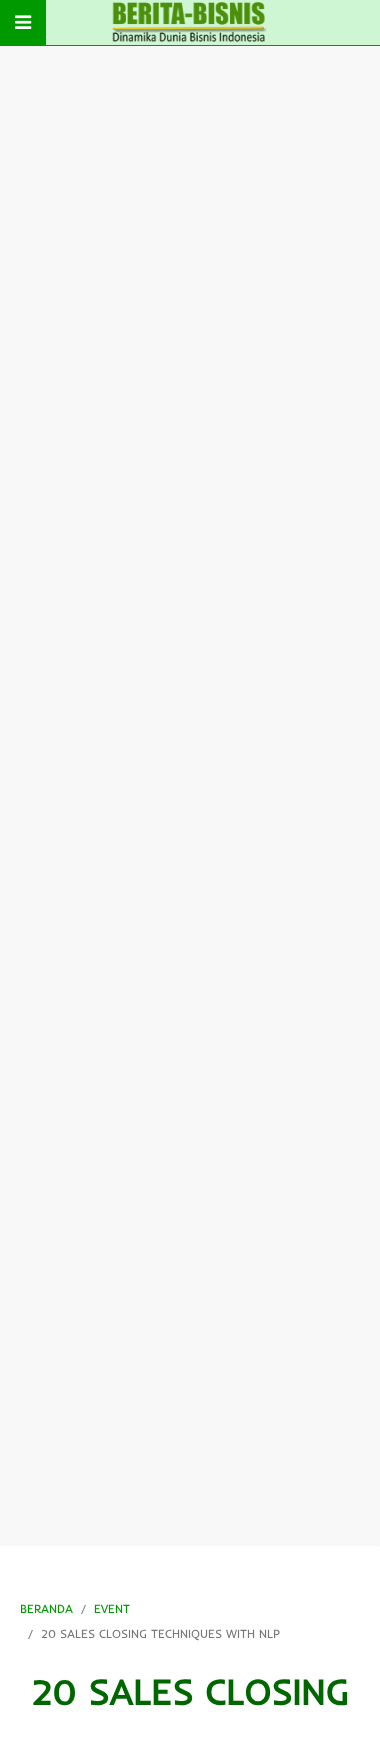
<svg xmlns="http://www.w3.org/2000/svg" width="380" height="1738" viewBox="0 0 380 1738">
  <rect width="100%" height="100%" fill="#fff"/>
  <path d="M0 45h380v1H0z" fill="#090"/>
  <path d="M46 0h334v45H46z" fill="#cef6d3"/>
  <path d="M0 0h46v45H0z" fill="#090"/>
  <image x="15" y="15" width="17" height="14" href="img/1.png"/>
  <image x="112" y="2" width="155" height="40" href="img/2.png"/>
  <path d="M0 46h380v1500H0z" fill="#f8f8f8"/>
  <image x="0" y="1546" width="380" height="1" href="img/3.png"/>
  <rect y="1546" width="380" height="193" rx="1" fill="#fff"/>
  <text x="20" y="1613" font-family="Inder" font-size="12" fill="#090">BERANDA</text>
  <text x="81" y="1613" font-family="Inder" font-size="12" fill="#777">/</text>
  <text x="94" y="1613" font-family="Inder" font-size="12" fill="#090">EVENT</text>
  <g font-family="Inder" font-size="12" fill="#777">
    <text x="28" y="1638">/</text>
    <text x="41" y="1638">20 SALES CLOSING TECHNIQUES WITH NLP</text>
  </g>
  <text x="31" y="1705" font-family="Inder" font-size="36" font-weight="bold" fill="#060">20 SALES CLOSING</text>
</svg>
